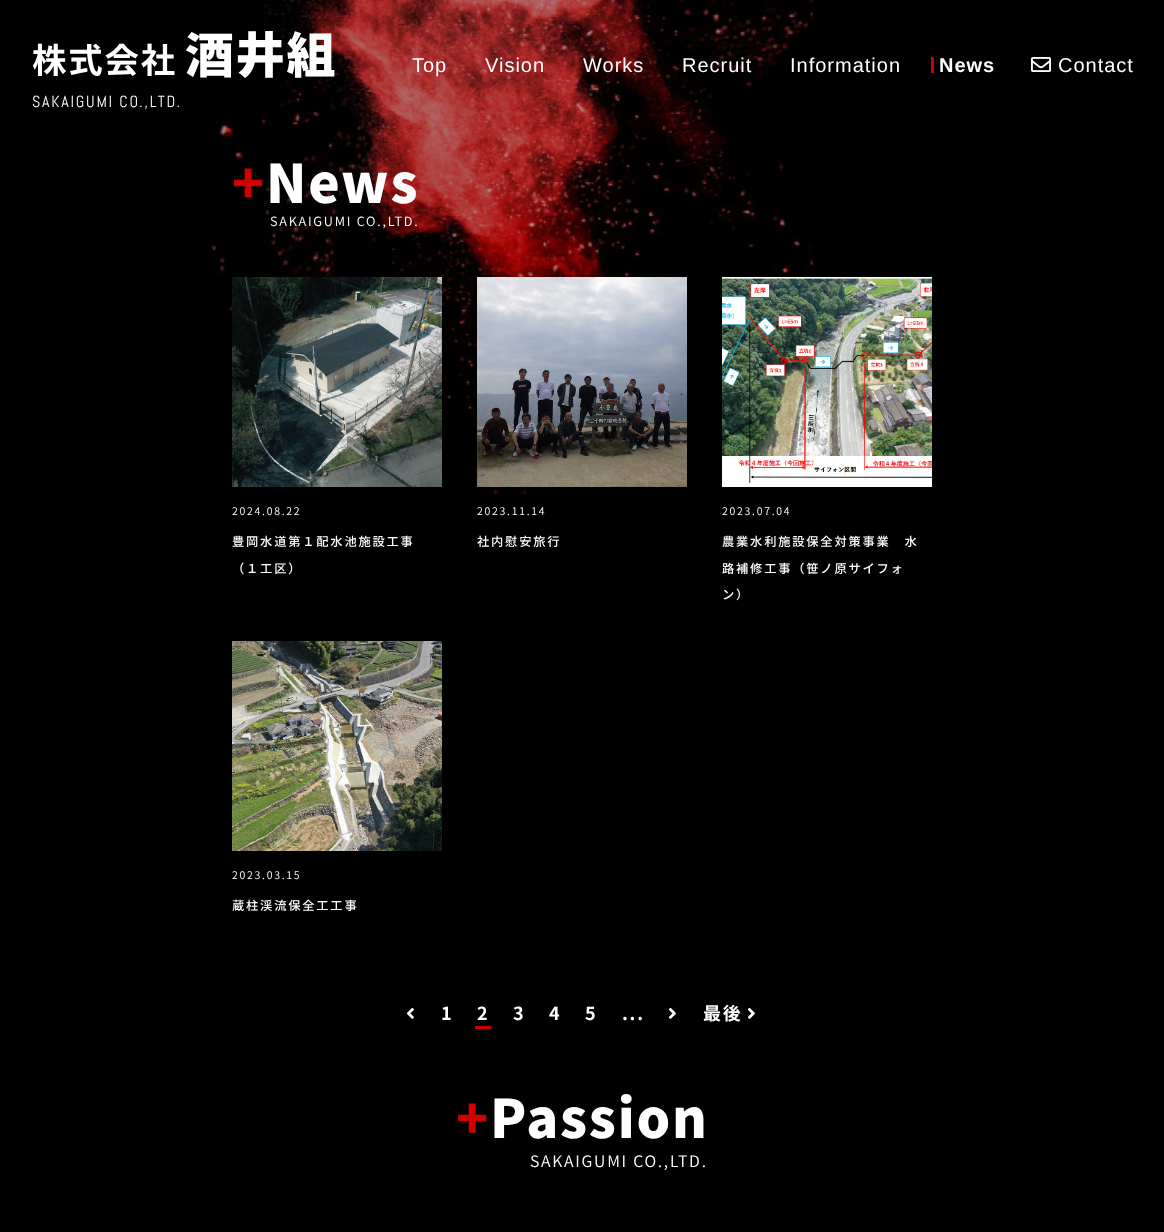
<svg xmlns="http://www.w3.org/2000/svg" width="1164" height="1232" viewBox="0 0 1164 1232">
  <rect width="100%" height="100%" fill="#000"/>
  <image x="208" y="0" width="607" height="495" href="img/1.png"/>
  <path d="M931 57h3v16H931z" fill="#d10000"/>
  <image x="1031" y="57" width="20" height="15" href="img/2.png"/>
  <image x="232" y="277" width="210" height="210" href="img/3.png"/>
  <image x="477" y="277" width="210" height="210" href="img/4.png"/>
  <image x="722" y="277" width="210" height="210" href="img/5.png"/>
  <image x="232" y="641" width="210" height="210" href="img/6.png"/>
  <image x="406" y="1007" width="8" height="12" href="img/7.png"/>
  <path d="M475 1026h16v3H475z" fill="#d10000"/>
  <image x="668" y="1007" width="8" height="12" href="img/8.png"/>
  <image x="747" y="1007" width="8" height="12" href="img/8.png"/>
  <text x="32" y="73" font-family="Noto Sans JP" font-size="34.5" font-weight="bold" letter-spacing="1.75" fill="#fff">株式会社</text>
  <text x="185" y="73" font-family="Noto Sans JP" font-size="49" font-weight="900" letter-spacing="1.75" fill="#fff">酒井組</text>
  <text x="32" y="107" font-family="Abel" font-size="16" letter-spacing="1.75" fill="#fff">SAKAIGUMI CO.,LTD.</text>
  <g font-family="Liberation Sans" font-size="20" letter-spacing="1" fill="#fff">
    <text x="412" y="72">Top</text>
    <text x="485" y="72">Vision</text>
    <text x="583" y="72">Works</text>
    <text x="682" y="72">Recruit</text>
    <text x="790" y="72">Information</text>
  </g>
  <text x="939" y="72" font-family="Liberation Sans" font-size="20" font-weight="bold" letter-spacing="1" fill="#fff">News</text>
  <text x="1058" y="72" font-family="Liberation Sans" font-size="20" letter-spacing="1" fill="#fff">Contact</text>
  <text x="232" y="203" font-family="Noto Sans JP" font-size="53" font-weight="900" letter-spacing="1.75" fill="#d10000">+</text>
  <text x="266" y="203" font-family="Noto Sans JP" font-size="53" font-weight="900" letter-spacing="1.75" fill="#fff">News</text>
  <text x="270" y="226" font-family="Noto Sans JP" font-size="12.75" font-weight="300" letter-spacing="1.75" fill="#fff">SAKAIGUMI CO.,LTD.</text>
  <text x="232" y="515" font-family="Noto Sans JP" font-size="10.5" font-weight="300" letter-spacing="1.75" fill="#fff">2024.08.22</text>
  <g font-family="Noto Sans JP" font-size="12.3" font-weight="500" letter-spacing="1.75" fill="#fff">
    <text x="232" y="546">豊岡水道第１配水池施設工事</text>
    <text x="232" y="573">（１工区）</text>
  </g>
  <text x="477" y="515" font-family="Noto Sans JP" font-size="10.5" font-weight="300" letter-spacing="1.75" fill="#fff">2023.11.14</text>
  <text x="477" y="546" font-family="Noto Sans JP" font-size="12.3" font-weight="500" letter-spacing="1.75" fill="#fff">社内慰安旅行</text>
  <text x="722" y="515" font-family="Noto Sans JP" font-size="10.5" font-weight="300" letter-spacing="1.75" fill="#fff">2023.07.04</text>
  <g font-family="Noto Sans JP" font-size="12.3" font-weight="500" letter-spacing="1.75" fill="#fff">
    <text x="722" y="546">農業水利施設保全対策事業　水</text>
    <text x="722" y="573">路補修工事（笹ノ原サイフォ</text>
    <text x="722" y="599">ン）</text>
  </g>
  <text x="232" y="879" font-family="Noto Sans JP" font-size="10.5" font-weight="300" letter-spacing="1.75" fill="#fff">2023.03.15</text>
  <text x="232" y="910" font-family="Noto Sans JP" font-size="12.3" font-weight="500" letter-spacing="1.75" fill="#fff">蔵柱渓流保全工工事</text>
  <g font-family="Noto Sans JP" font-size="18" font-weight="bold" letter-spacing="1.75" fill="#fff">
    <text x="441" y="1020">1</text>
    <text x="477" y="1020">2</text>
    <text x="513" y="1020">3</text>
    <text x="549" y="1020">4</text>
    <text x="585" y="1020">5</text>
    <text x="622" y="1020">...</text>
    <text x="703" y="1020">最後</text>
  </g>
  <text x="456" y="1138" font-family="Noto Sans JP" font-size="53" font-weight="900" letter-spacing="1.75" fill="#d10000">+</text>
  <text x="490" y="1138" font-family="Noto Sans JP" font-size="53" font-weight="900" letter-spacing="1.75" fill="#fff">Passion</text>
  <text x="530" y="1167" font-family="Noto Sans JP" font-size="15.8" font-weight="300" letter-spacing="1.75" fill="#fff">SAKAIGUMI CO.,LTD.</text>
</svg>
